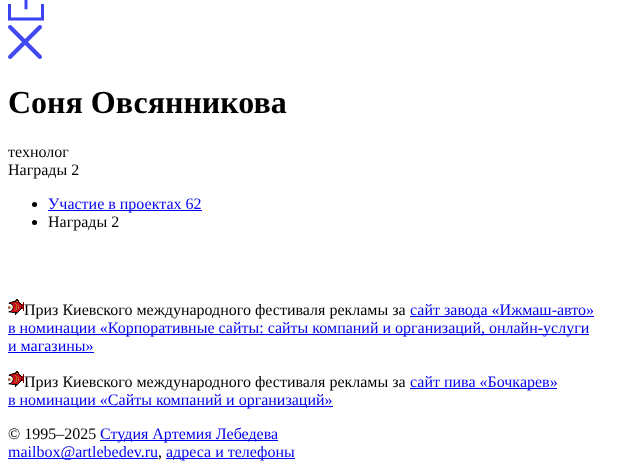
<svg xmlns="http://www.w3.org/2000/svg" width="623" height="470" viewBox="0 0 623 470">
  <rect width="100%" height="100%" fill="#fff"/>
  <image x="8" y="0" width="36" height="21" href="img/1.png"/>
  <image x="8" y="25" width="34" height="34" href="img/2.png"/>
  <circle cx="34.5" cy="204.5" r="2.5" fill="#000"/>
  <path d="M48 210h154v1H48z" fill="#00e"/>
  <circle cx="34.5" cy="222.5" r="2.5" fill="#000"/>
  <image x="8" y="299" width="16" height="16" href="img/3.png"/>
  <path d="M410 316h184v1H410z" fill="#00e"/>
  <path d="M8 334h581v1H8z" fill="#00e"/>
  <path d="M8 352h86v1H8z" fill="#00e"/>
  <image x="8" y="371" width="16" height="16" href="img/3.png"/>
  <path d="M410 388h147v1H410z" fill="#00e"/>
  <path d="M8 406h325v1H8z" fill="#00e"/>
  <path d="M100 440h178v1H100z" fill="#00e"/>
  <path d="M8 458h150v1H8z" fill="#00e"/>
  <path d="M166 458h129v1H166z" fill="#00e"/>
  <text x="8" y="113" font-family="Liberation Serif" font-size="32" font-weight="bold" fill="#000">Соня Овсянникова</text>
  <g font-family="Liberation Serif" font-size="16" fill="#000">
    <text x="8" y="157">технолог</text>
    <text x="8" y="175">Награды 2</text>
  </g>
  <text x="48" y="209" font-family="Liberation Serif" font-size="16" fill="#00e">Участие в проектах 62</text>
  <g font-family="Liberation Serif" font-size="16" fill="#000">
    <text x="48" y="227">Награды 2</text>
    <text x="24" y="315">Приз Киевского международного фестиваля рекламы за</text>
  </g>
  <g font-family="Liberation Serif" font-size="16" fill="#00e">
    <text x="410" y="315">сайт завода «Ижмаш-авто»</text>
    <text x="8" y="333">в номинации «Корпоративные сайты: сайты компаний и организаций, онлайн-услуги</text>
    <text x="8" y="351">и магазины»</text>
  </g>
  <text x="24" y="387" font-family="Liberation Serif" font-size="16" fill="#000">Приз Киевского международного фестиваля рекламы за</text>
  <g font-family="Liberation Serif" font-size="16" fill="#00e">
    <text x="410" y="387">сайт пива «Бочкарев»</text>
    <text x="8" y="405">в номинации «Сайты компаний и организаций»</text>
  </g>
  <text x="8" y="439" font-family="Liberation Serif" font-size="16" fill="#000">© 1995–2025</text>
  <g font-family="Liberation Serif" font-size="16" fill="#00e">
    <text x="100" y="439">Студия Артемия Лебедева</text>
    <text x="8" y="457">mailbox@artlebedev.ru</text>
  </g>
  <text x="158" y="457" font-family="Liberation Serif" font-size="16" fill="#000">,</text>
  <text x="166" y="457" font-family="Liberation Serif" font-size="16" fill="#00e">адреса и телефоны</text>
</svg>
